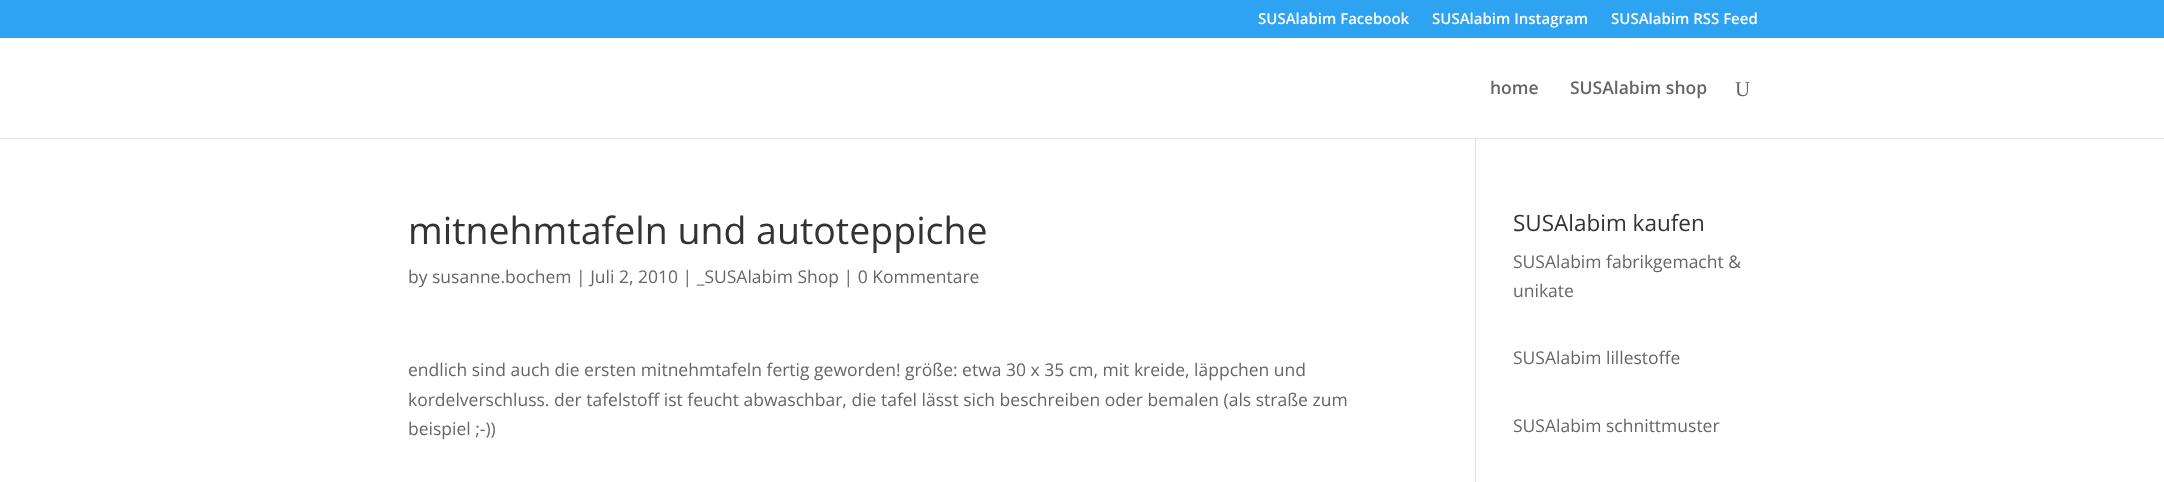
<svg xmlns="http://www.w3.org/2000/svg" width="2164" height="482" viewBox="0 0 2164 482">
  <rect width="100%" height="100%" fill="#fff"/>
  <path d="M0 0h2164v38H0z" fill="#2ea3f2"/>
  <path d="M0 138h2164v1H0z" fill="#e6e6e6"/>
  <path d="M1475 139h1v343H1475z" fill="#e2e2e2"/>
  <g font-family="Open Sans" font-size="15" font-weight="600" fill="#fff">
    <text x="1258" y="24">SUSAlabim Facebook</text>
    <text x="1432" y="24">SUSAlabim Instagram</text>
    <text x="1611" y="24">SUSAlabim RSS Feed</text>
  </g>
  <g font-family="Open Sans" font-size="17.5" font-weight="600" fill="#666">
    <text x="1490" y="94">home</text>
    <text x="1570" y="94">SUSAlabim shop</text>
  </g>
  <text x="1735" y="96" font-family="Liberation Serif" font-size="21" fill="#666">U</text>
  <text x="408" y="244" font-family="Open Sans" font-size="37.5" fill="#333">mitnehmtafeln und autoteppiche</text>
  <g font-family="Open Sans" font-size="17.5" fill="#666">
    <text x="408" y="283">by susanne.bochem | Juli 2, 2010 | _SUSAlabim Shop | 0 Kommentare</text>
    <text x="408" y="376">endlich sind auch die ersten mitnehmtafeln fertig geworden! größe: etwa 30 x 35 cm, mit kreide, läppchen und</text>
    <text x="408" y="406">kordelverschluss. der tafelstoff ist feucht abwaschbar, die tafel lässt sich beschreiben oder bemalen (als straße zum</text>
    <text x="408" y="435">beispiel ;-))</text>
  </g>
  <text x="1513" y="231" font-family="Open Sans" font-size="22.5" fill="#333">SUSAlabim kaufen</text>
  <g font-family="Open Sans" font-size="17.5" fill="#666">
    <text x="1513" y="268">SUSAlabim fabrikgemacht &amp;</text>
    <text x="1513" y="297">unikate</text>
    <text x="1513" y="364">SUSAlabim lillestoffe</text>
    <text x="1513" y="432">SUSAlabim schnittmuster</text>
  </g>
</svg>
